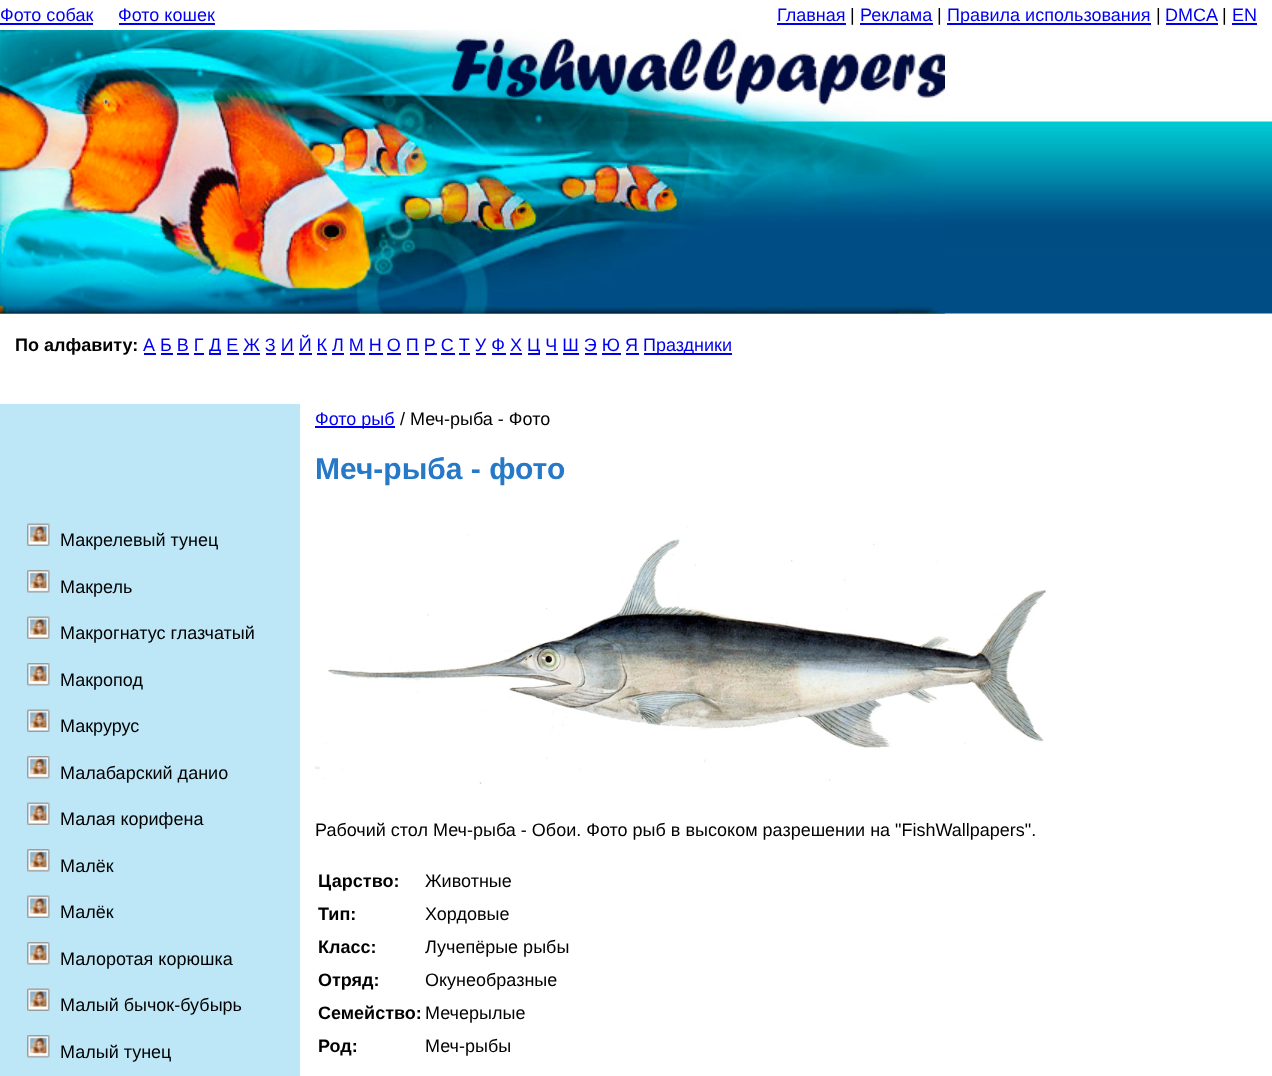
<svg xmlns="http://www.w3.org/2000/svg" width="1272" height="1076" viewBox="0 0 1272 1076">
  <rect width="100%" height="100%" fill="#fff"/>
  <path d="M0 23h93v2H0z" fill="#00e"/>
  <path d="M119 23h96v2H119z" fill="#00e"/>
  <path d="M777 23h69v2H777z" fill="#00e"/>
  <path d="M860 23h73v2H860z" fill="#00e"/>
  <path d="M947 23h204v2H947z" fill="#00e"/>
  <path d="M1166 23h52v2H1166z" fill="#00e"/>
  <path d="M1232 23h25v2H1232z" fill="#00e"/>
  <image x="0" y="117" width="1272" height="197" href="img/1.png"/>
  <image x="0" y="30" width="945" height="284" href="img/2.png"/>
  <path d="M144 353h12v2H144z" fill="#00e"/>
  <path d="M209 353h12v2H209z" fill="#00e"/>
  <path d="M528 353h12v2H528z" fill="#00e"/>
  <path d="M644 353h88v2H644z" fill="#00e"/>
  <path d="M161 353h12v2H161z" fill="#00e"/>
  <path d="M177 353h12v2H177z" fill="#00e"/>
  <path d="M194 353h10v2H194z" fill="#00e"/>
  <path d="M227 353h12v2H227z" fill="#00e"/>
  <path d="M243 353h17v2H243z" fill="#00e"/>
  <path d="M266 353h10v2H266z" fill="#00e"/>
  <path d="M281 353h13v2H281z" fill="#00e"/>
  <path d="M299 353h13v2H299z" fill="#00e"/>
  <path d="M317 353h10v2H317z" fill="#00e"/>
  <path d="M332 353h12v2H332z" fill="#00e"/>
  <path d="M350 353h15v2H350z" fill="#00e"/>
  <path d="M369 353h14v2H369z" fill="#00e"/>
  <path d="M387 353h14v2H387z" fill="#00e"/>
  <path d="M407 353h12v2H407z" fill="#00e"/>
  <path d="M425 353h12v2H425z" fill="#00e"/>
  <path d="M441 353h14v2H441z" fill="#00e"/>
  <path d="M459 353h11v2H459z" fill="#00e"/>
  <path d="M476 353h10v2H476z" fill="#00e"/>
  <path d="M492 353h14v2H492z" fill="#00e"/>
  <path d="M510 353h12v2H510z" fill="#00e"/>
  <path d="M546 353h12v2H546z" fill="#00e"/>
  <path d="M563 353h16v2H563z" fill="#00e"/>
  <path d="M585 353h12v2H585z" fill="#00e"/>
  <path d="M602 353h19v2H602z" fill="#00e"/>
  <path d="M626 353h13v2H626z" fill="#00e"/>
  <path d="M0 404h300v672H0z" fill="#bde7f7"/>
  <image x="27" y="523" width="23" height="23" href="img/3.png"/>
  <image x="27" y="570" width="23" height="23" href="img/4.png"/>
  <image x="27" y="616" width="23" height="23" href="img/3.png"/>
  <image x="27" y="663" width="23" height="23" href="img/4.png"/>
  <image x="27" y="709" width="23" height="23" href="img/3.png"/>
  <image x="27" y="756" width="23" height="23" href="img/4.png"/>
  <image x="27" y="802" width="23" height="23" href="img/3.png"/>
  <image x="27" y="849" width="23" height="23" href="img/4.png"/>
  <image x="27" y="895" width="23" height="23" href="img/3.png"/>
  <image x="27" y="942" width="23" height="23" href="img/4.png"/>
  <image x="27" y="988" width="23" height="23" href="img/3.png"/>
  <image x="27" y="1035" width="23" height="23" href="img/4.png"/>
  <path d="M315 426h80v2H315z" fill="#00e"/>
  <image x="315" y="512" width="745" height="276" href="img/5.png"/>
  <g font-family="Liberation Sans" font-size="18" fill="#00e">
    <text x="0" y="21">Фото собак</text>
    <text x="118" y="21">Фото кошек</text>
    <text x="777" y="21">Главная</text>
  </g>
  <text x="850" y="21" font-family="Liberation Sans" font-size="18" fill="#000">|</text>
  <text x="860" y="21" font-family="Liberation Sans" font-size="18" fill="#00e">Реклама</text>
  <text x="937" y="21" font-family="Liberation Sans" font-size="18" fill="#000">|</text>
  <text x="947" y="21" font-family="Liberation Sans" font-size="18" fill="#00e">Правила использования</text>
  <text x="1156" y="21" font-family="Liberation Sans" font-size="18" fill="#000">|</text>
  <text x="1165" y="21" font-family="Liberation Sans" font-size="18" fill="#00e">DMCA</text>
  <text x="1222" y="21" font-family="Liberation Sans" font-size="18" fill="#000">|</text>
  <text x="1232" y="21" font-family="Liberation Sans" font-size="18" fill="#00e">EN</text>
  <text x="15" y="351" font-family="Liberation Sans" font-size="18" font-weight="bold" fill="#000">По алфавиту:</text>
  <g font-family="Liberation Sans" font-size="18" fill="#00e">
    <text x="143" y="351">А Б В Г</text>
    <text x="209" y="351">Д Е Ж З И Й К Л М Н О П Р С Т У Ф Х</text>
    <text x="527" y="351">Ц Ч Ш Э Ю Я</text>
    <text x="643" y="351">Праздники</text>
  </g>
  <g font-family="Liberation Sans" font-size="18" fill="#000">
    <text x="60" y="546">Макрелевый тунец</text>
    <text x="60" y="593">Макрель</text>
    <text x="60" y="639">Макрогнатус глазчатый</text>
    <text x="60" y="686">Макропод</text>
    <text x="60" y="732">Макрурус</text>
    <text x="60" y="779">Малабарский данио</text>
    <text x="60" y="825">Малая корифена</text>
    <text x="60" y="872">Малёк</text>
    <text x="60" y="918">Малёк</text>
    <text x="60" y="965">Малоротая корюшка</text>
    <text x="60" y="1011">Малый бычок-бубырь</text>
    <text x="60" y="1058">Малый тунец</text>
  </g>
  <text x="315" y="425" font-family="Liberation Sans" font-size="18" fill="#00e">Фото рыб</text>
  <text x="400" y="425" font-family="Liberation Sans" font-size="18" fill="#000">/ Меч-рыба - Фото</text>
  <text x="315" y="479" font-family="Liberation Sans" font-size="30" font-weight="bold" fill="#2679c7">Меч-рыба - фото</text>
  <text x="315" y="836" font-family="Liberation Sans" font-size="18" fill="#000">Рабочий стол Меч-рыба - Обои. Фото рыб в высоком разрешении на "FishWallpapers".</text>
  <text x="318" y="887" font-family="Liberation Sans" font-size="18" font-weight="bold" fill="#000">Царство:</text>
  <text x="425" y="887" font-family="Liberation Sans" font-size="18" fill="#000">Животные</text>
  <text x="318" y="920" font-family="Liberation Sans" font-size="18" font-weight="bold" fill="#000">Тип:</text>
  <text x="425" y="920" font-family="Liberation Sans" font-size="18" fill="#000">Хордовые</text>
  <text x="318" y="953" font-family="Liberation Sans" font-size="18" font-weight="bold" fill="#000">Класс:</text>
  <text x="425" y="953" font-family="Liberation Sans" font-size="18" fill="#000">Лучепёрые рыбы</text>
  <text x="318" y="986" font-family="Liberation Sans" font-size="18" font-weight="bold" fill="#000">Отряд:</text>
  <text x="425" y="986" font-family="Liberation Sans" font-size="18" fill="#000">Окунеобразные</text>
  <text x="318" y="1019" font-family="Liberation Sans" font-size="18" font-weight="bold" fill="#000">Семейство:</text>
  <text x="425" y="1019" font-family="Liberation Sans" font-size="18" fill="#000">Мечерылые</text>
  <text x="318" y="1052" font-family="Liberation Sans" font-size="18" font-weight="bold" fill="#000">Род:</text>
  <text x="425" y="1052" font-family="Liberation Sans" font-size="18" fill="#000">Меч-рыбы</text>
</svg>
